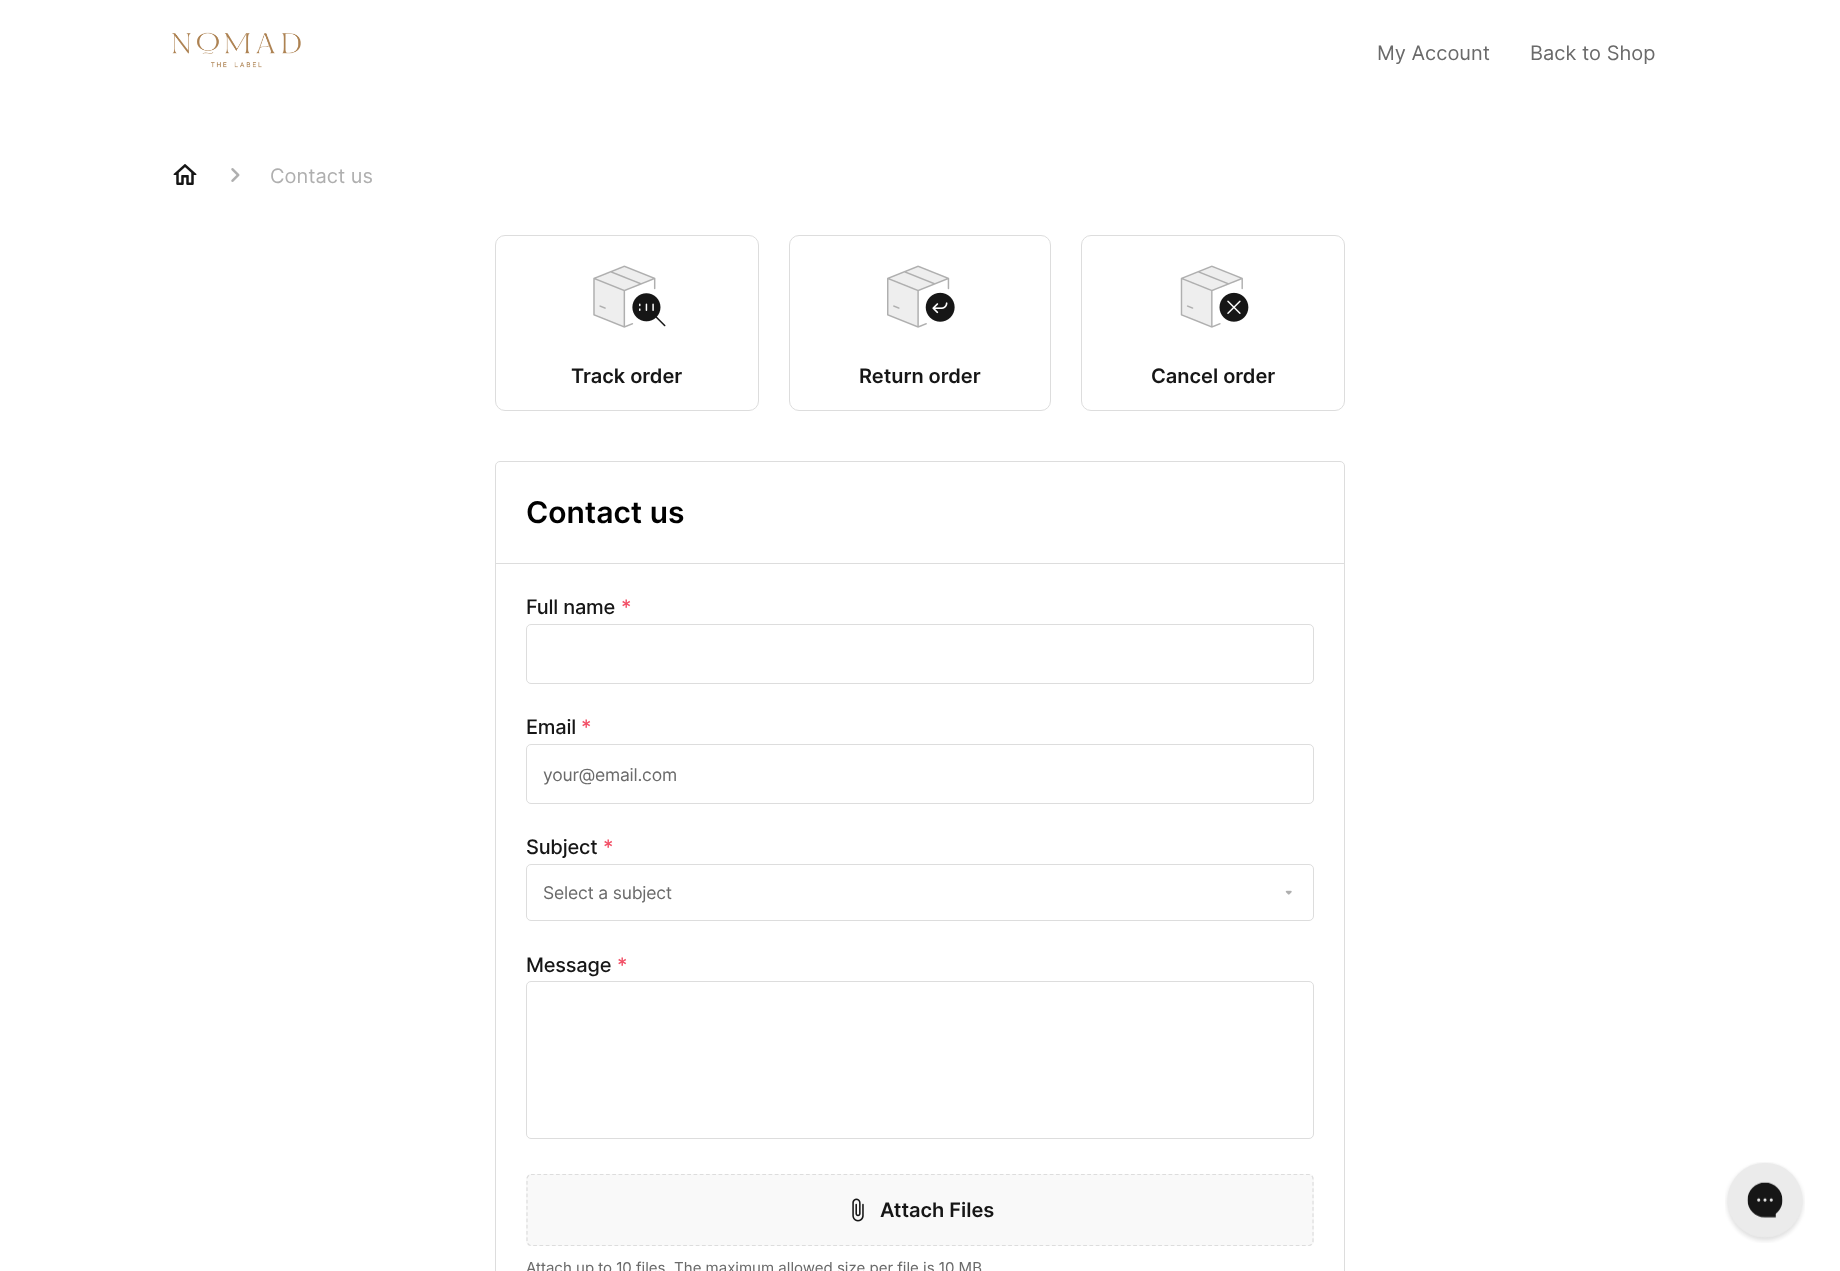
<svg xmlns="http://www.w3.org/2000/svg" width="1840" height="1271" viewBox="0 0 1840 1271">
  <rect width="100%" height="100%" fill="#fff"/>
  <image x="172" y="32" width="129" height="36" href="img/1.png"/>
  <image x="173" y="164" width="24" height="21" href="img/2.png"/>
  <image x="231" y="168" width="9" height="14" href="img/3.png"/>
  <rect x="495.5" y="235.5" width="263" height="175" rx="9.5" fill="none" stroke="#ddd"/>
  <image x="593" y="265" width="73" height="63" href="img/4.png"/>
  <rect x="789.5" y="235.5" width="261" height="175" rx="9.5" fill="none" stroke="#ddd"/>
  <image x="887" y="265" width="68" height="63" href="img/5.png"/>
  <rect x="1081.5" y="235.5" width="263" height="175" rx="9.5" fill="none" stroke="#ddd"/>
  <image x="1180" y="265" width="69" height="63" href="img/6.png"/>
  <rect x="495.5" y="461.5" width="849" height="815" rx="4.5" fill="none" stroke="#ddd"/>
  <path d="M496 563h848v1H496z" fill="#ddd"/>
  <rect x="526.5" y="624.5" width="787" height="59" rx="4.5" fill="none" stroke="#ddd"/>
  <rect x="526.5" y="744.5" width="787" height="59" rx="4.5" fill="none" stroke="#ddd"/>
  <rect x="526.5" y="864.5" width="787" height="56" rx="4.5" fill="none" stroke="#ddd"/>
  <image x="1285" y="890" width="7" height="5" href="img/7.png"/>
  <rect x="526.5" y="981.5" width="787" height="157" rx="4.5" fill="none" stroke="#ddd"/>
  <rect x="526" y="1174" width="788" height="72" rx="5" fill="#f9f9f9"/>
  <path d="M531 1174.5H1309C1311 1174.5 1313 1176.5 1313 1179V1241C1313 1243.5 1311 1245.5 1309 1245.5H531C529 1245.5 527 1243.5 527 1241V1179C527 1176.5 529 1174.5 531 1174.5Z" fill="none" stroke="#ddd" stroke-width="1.2" stroke-dasharray="3.75 2.5"/>
  <image x="852" y="1198" width="12" height="24" href="img/8.png"/>
  <image x="1725" y="1162" width="80" height="81" href="img/9.png"/>
  <g font-family="Inter" font-size="20" fill="#6a6a6a">
    <text x="1377" y="60">My Account</text>
    <text x="1530" y="60">Back to Shop</text>
  </g>
  <text x="270" y="183" font-family="Inter" font-size="20" fill="#afafaf">Contact us</text>
  <g font-family="Inter" font-size="20" font-weight="600" fill="#161616">
    <text x="571" y="383">Track order</text>
    <text x="859" y="383">Return order</text>
    <text x="1151" y="383">Cancel order</text>
  </g>
  <text x="526" y="523" font-family="Inter" font-size="30" font-weight="600" fill="#000">Contact us</text>
  <text x="526" y="614" font-family="Inter" font-size="20" font-weight="500" letter-spacing="-0.2" fill="#161616">Full name</text>
  <text x="621" y="614" font-family="Inter" font-size="20" font-weight="500" letter-spacing="-0.2" fill="#f24f66">*</text>
  <text x="526" y="734" font-family="Inter" font-size="20" font-weight="500" letter-spacing="-0.2" fill="#161616">Email</text>
  <text x="581" y="734" font-family="Inter" font-size="20" font-weight="500" letter-spacing="-0.2" fill="#f24f66">*</text>
  <text x="543" y="781" font-family="Inter" font-size="17.5" letter-spacing="-0.2" fill="#6a6a6a">your@email.com</text>
  <text x="526" y="854" font-family="Inter" font-size="20" font-weight="500" letter-spacing="-0.2" fill="#161616">Subject</text>
  <text x="603" y="854" font-family="Inter" font-size="20" font-weight="500" letter-spacing="-0.2" fill="#f24f66">*</text>
  <text x="543" y="899" font-family="Inter" font-size="17.5" letter-spacing="-0.2" fill="#6a6a6a">Select a subject</text>
  <text x="526" y="972" font-family="Inter" font-size="20" font-weight="500" letter-spacing="-0.2" fill="#161616">Message</text>
  <text x="617" y="972" font-family="Inter" font-size="20" font-weight="500" letter-spacing="-0.2" fill="#f24f66">*</text>
  <text x="880" y="1217" font-family="Inter" font-size="20" font-weight="600" fill="#161616">Attach Files</text>
  <text x="526" y="1273" font-family="'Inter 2'" font-size="15" fill="#6a6a6a">Attach up to 10 files. The maximum allowed size per file is 10 MB</text>
</svg>
